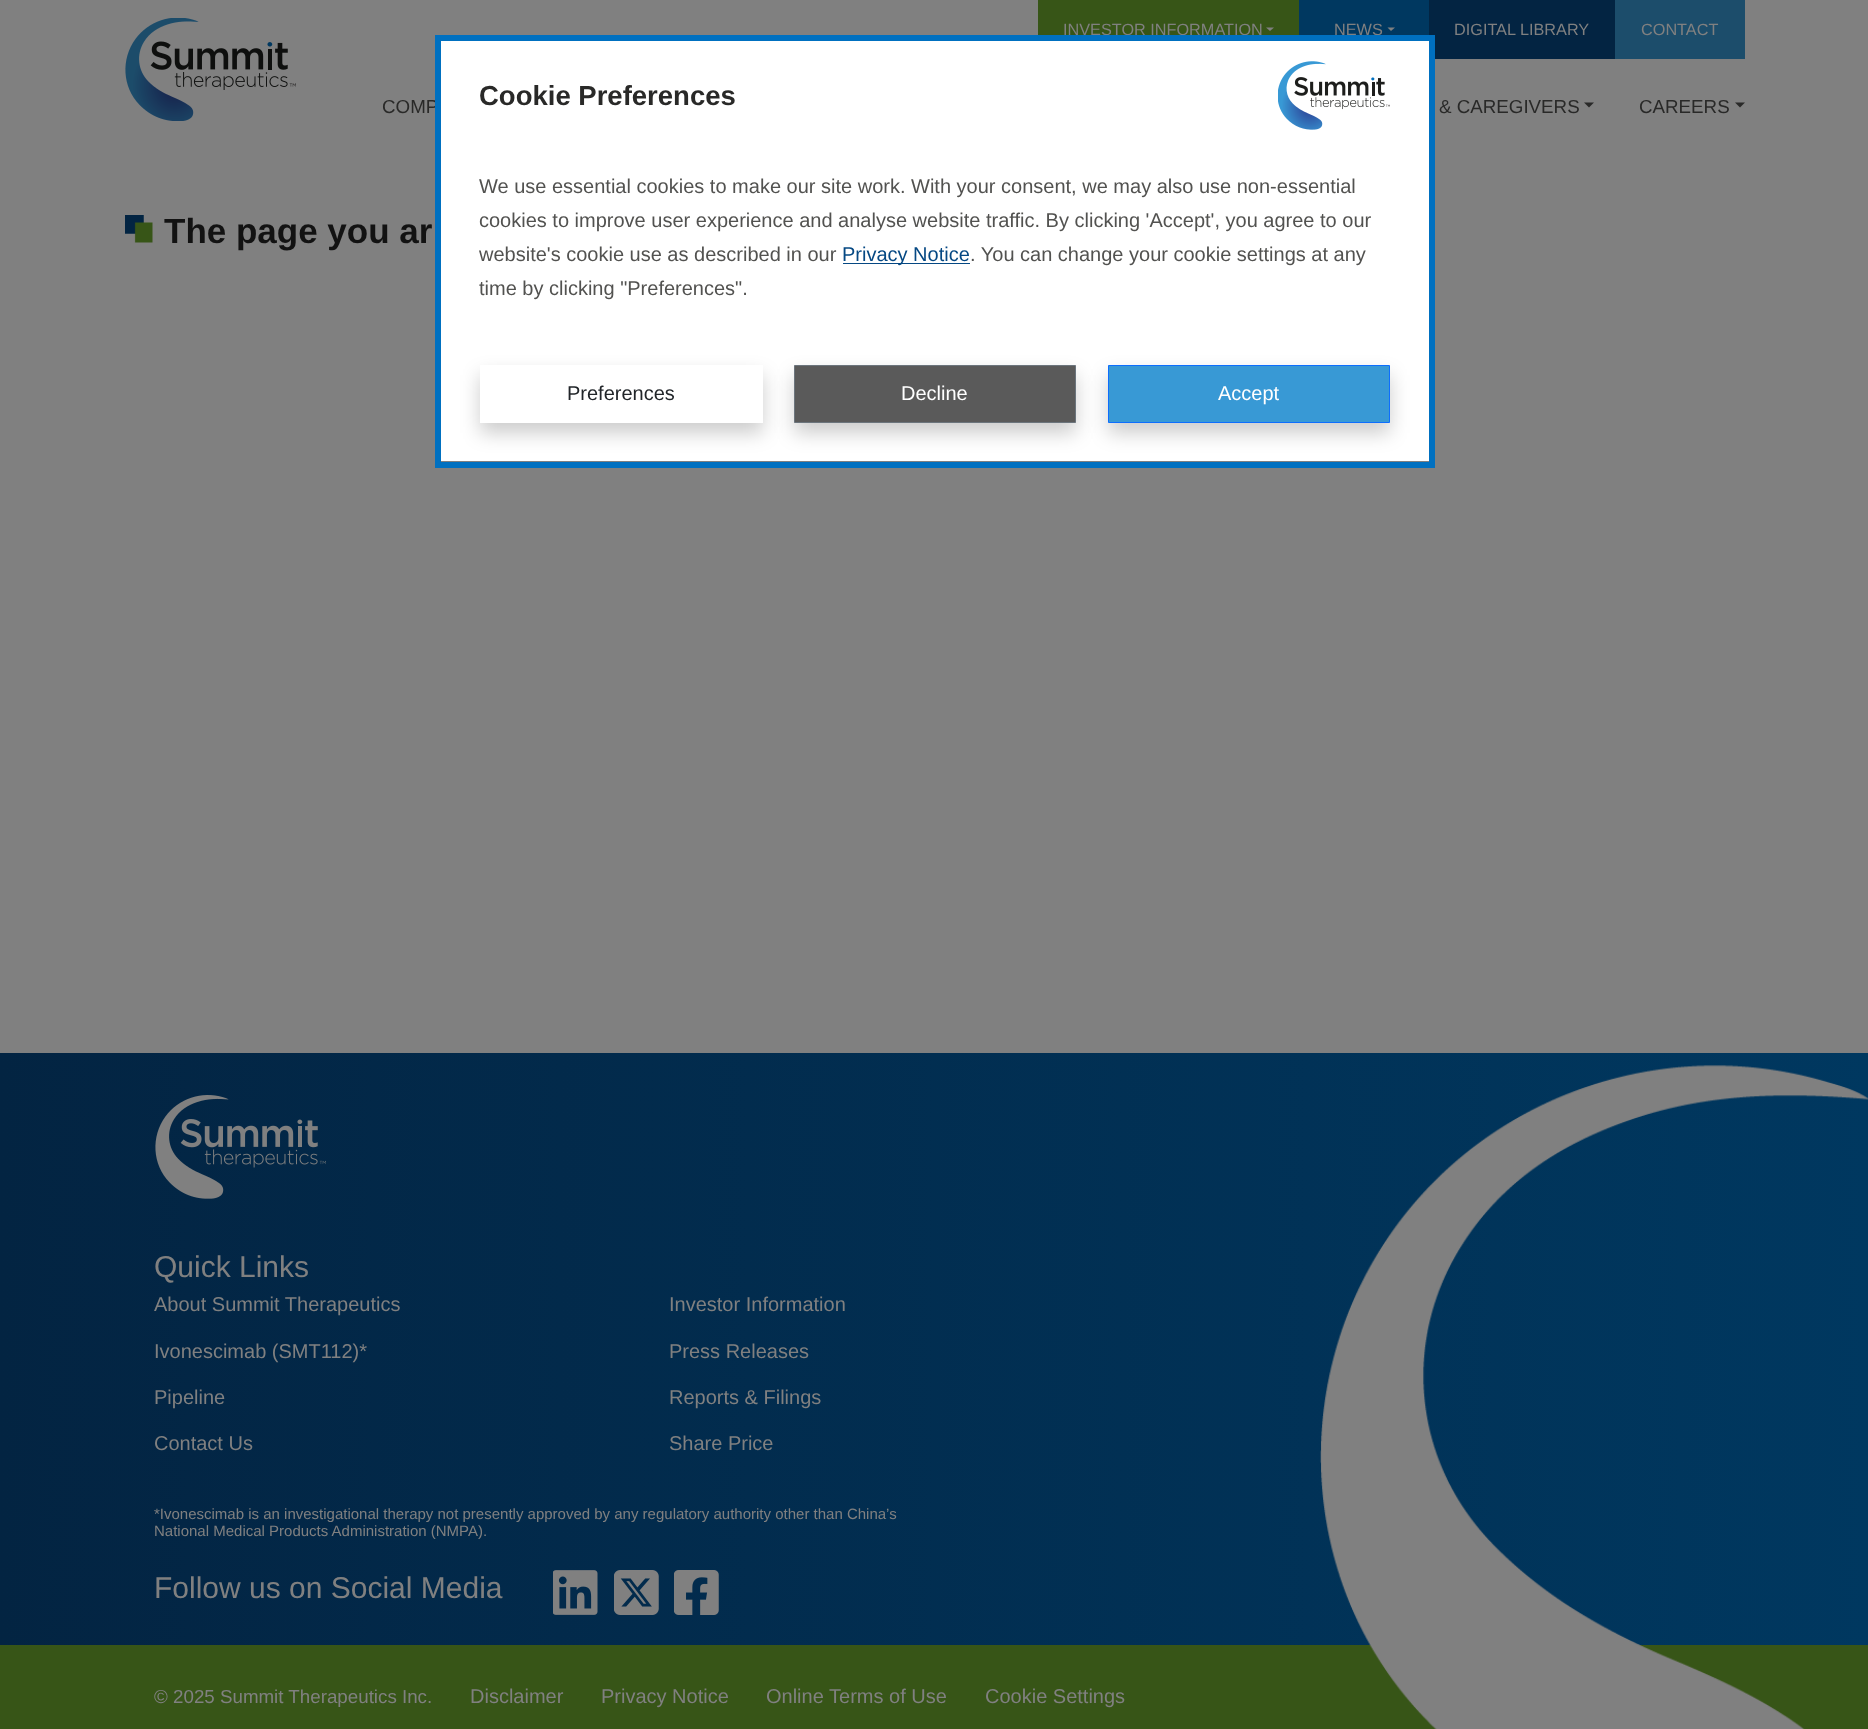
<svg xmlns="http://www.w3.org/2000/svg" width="1868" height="1729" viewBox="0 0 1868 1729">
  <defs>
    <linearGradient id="g1" gradientUnits="userSpaceOnUse" x1="0" y1="1453" x2="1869" y2="1453"><stop offset="0" stop-color="#032442"/><stop offset="1" stop-color="#003860"/></linearGradient>
    <clipPath id="clip1"><path d="M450 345H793V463H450ZM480 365H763V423H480Z" clip-rule="evenodd"/></clipPath>
  </defs>
  <rect width="100%" height="100%" fill="#808080"/>
  <image x="125" y="18" width="171" height="103" href="img/1.png"/>
  <path d="M1038 0h261v35H1038z" fill="#375517"/>
  <path d="M1266 27.5H1274L1270 31Z" fill="#808080"/>
  <path d="M1299 0h130v35H1299z" fill="#003860"/>
  <path d="M1387.5 27.5H1395L1391 31Z" fill="#808080"/>
  <path d="M1429 0h186v59H1429z" fill="#032442"/>
  <path d="M1615 0h130v59H1615z" fill="#1c4d6b"/>
  <path d="M1584 102.5H1594L1589 107.5Z" fill="#292928"/>
  <path d="M1735 102.5H1745L1740 107.5Z" fill="#292928"/>
  <image x="125" y="215" width="28" height="28" href="img/2.png"/>
  <path d="M441 41h988v420H441z" fill="#fff"/>
  <path d="M0 1053h1868v592H0z" fill="url(#g1)"/>
  <image x="155" y="1095" width="171" height="104" href="img/4.png"/>
  <image x="553" y="1570" width="45" height="45" href="img/5.png"/>
  <image x="614" y="1570" width="45" height="45" href="img/6.png"/>
  <image x="674" y="1570" width="45" height="45" href="img/7.png"/>
  <path d="M0 1645h1868v84H0z" fill="#375517"/>
  <image x="1320" y="1065" width="548" height="664" href="img/8.png"/>
  <g font-family="Liberation Sans" font-size="16.25" fill="#808080">
    <text x="1063" y="35">INVESTOR INFORMATION</text>
    <text x="1334" y="35">NEWS</text>
    <text x="1454" y="35">DIGITAL LIBRARY</text>
    <text x="1641" y="35">CONTACT</text>
  </g>
  <g font-family="Liberation Sans" font-size="18.75" fill="#292928">
    <text x="382" y="113">COMP</text>
    <text x="1439" y="113">&amp; CAREGIVERS</text>
    <text x="1639" y="113">CAREERS</text>
  </g>
  <text x="164" y="243" font-family="Liberation Sans" font-size="35" font-weight="bold" fill="#121212">The page you ar</text>
  <path d="M438 38h994v427H438z" fill="none" stroke="#0070c0" stroke-width="6"/>
  <text x="479" y="105" font-family="Liberation Sans" font-size="27.5" font-weight="bold" fill="#292928">Cookie Preferences</text>
  <image x="1278" y="61" width="112" height="69" href="img/3.png"/>
  <g font-family="Liberation Sans" font-size="20" fill="#525250">
    <text x="479" y="193">We use essential cookies to make our site work. With your consent, we may also use non-essential</text>
    <text x="479" y="227">cookies to improve user experience and analyse website traffic. By clicking 'Accept', you agree to our</text>
    <text x="479" y="261">website's cookie use as described in our</text>
  </g>
  <path d="M843 263h127v1H843z" fill="#054883"/>
  <text x="842" y="261" font-family="Liberation Sans" font-size="20" fill="#054883">Privacy Notice</text>
  <g font-family="Liberation Sans" font-size="20" fill="#525250">
    <text x="970" y="261">. You can change your cookie settings at any</text>
    <text x="479" y="295">time by clicking "Preferences".</text>
  </g>
  <g clip-path="url(#clip1)">
    <path d="M480 375h283v58H480z" fill="#00000033" filter="blur(9.5px)"/>
  </g>
  <text x="567" y="400" font-family="Liberation Sans" font-size="20" fill="#212529">Preferences</text>
  <path d="M794 375h282v58H794z" fill="#00000033" filter="blur(9.5px)"/>
  <path d="M794.5 365.5h281v57H794.5z" fill="#5a5a5a" stroke="#6c757d"/>
  <text x="901" y="400" font-family="Liberation Sans" font-size="20" fill="#fff">Decline</text>
  <path d="M1108 375h282v58H1108z" fill="#00000033" filter="blur(9.5px)"/>
  <path d="M1108.5 365.5h281v57H1108.5z" fill="#3899d5" stroke="#0d6efd"/>
  <text x="1218" y="400" font-family="Liberation Sans" font-size="20" fill="#fff">Accept</text>
  <text x="154" y="1277" font-family="Liberation Sans" font-size="30" fill="#808080">Quick Links</text>
  <g font-family="Liberation Sans" font-size="20" fill="#808080">
    <text x="154" y="1311">About Summit Therapeutics</text>
    <text x="669" y="1311">Investor Information</text>
    <text x="154" y="1358">Ivonescimab (SMT112)*</text>
    <text x="669" y="1358">Press Releases</text>
    <text x="154" y="1404">Pipeline</text>
    <text x="669" y="1404">Reports &amp; Filings</text>
    <text x="154" y="1450">Contact Us</text>
    <text x="669" y="1450">Share Price</text>
  </g>
  <g font-family="Liberation Sans" font-size="15" fill="#808080">
    <text x="154" y="1519">*Ivonescimab is an investigational therapy not presently approved by any regulatory authority other than China’s</text>
    <text x="154" y="1536">National Medical Products Administration (NMPA).</text>
  </g>
  <text x="154" y="1598" font-family="Liberation Sans" font-size="30" fill="#808080">Follow us on Social Media</text>
  <text x="154" y="1703" font-family="Liberation Sans" font-size="18.75" fill="#808080">© 2025 Summit Therapeutics Inc.</text>
  <g font-family="Liberation Sans" font-size="20" fill="#808080">
    <text x="470" y="1703">Disclaimer</text>
    <text x="601" y="1703">Privacy Notice</text>
    <text x="766" y="1703">Online Terms of Use</text>
    <text x="985" y="1703">Cookie Settings</text>
  </g>
</svg>
